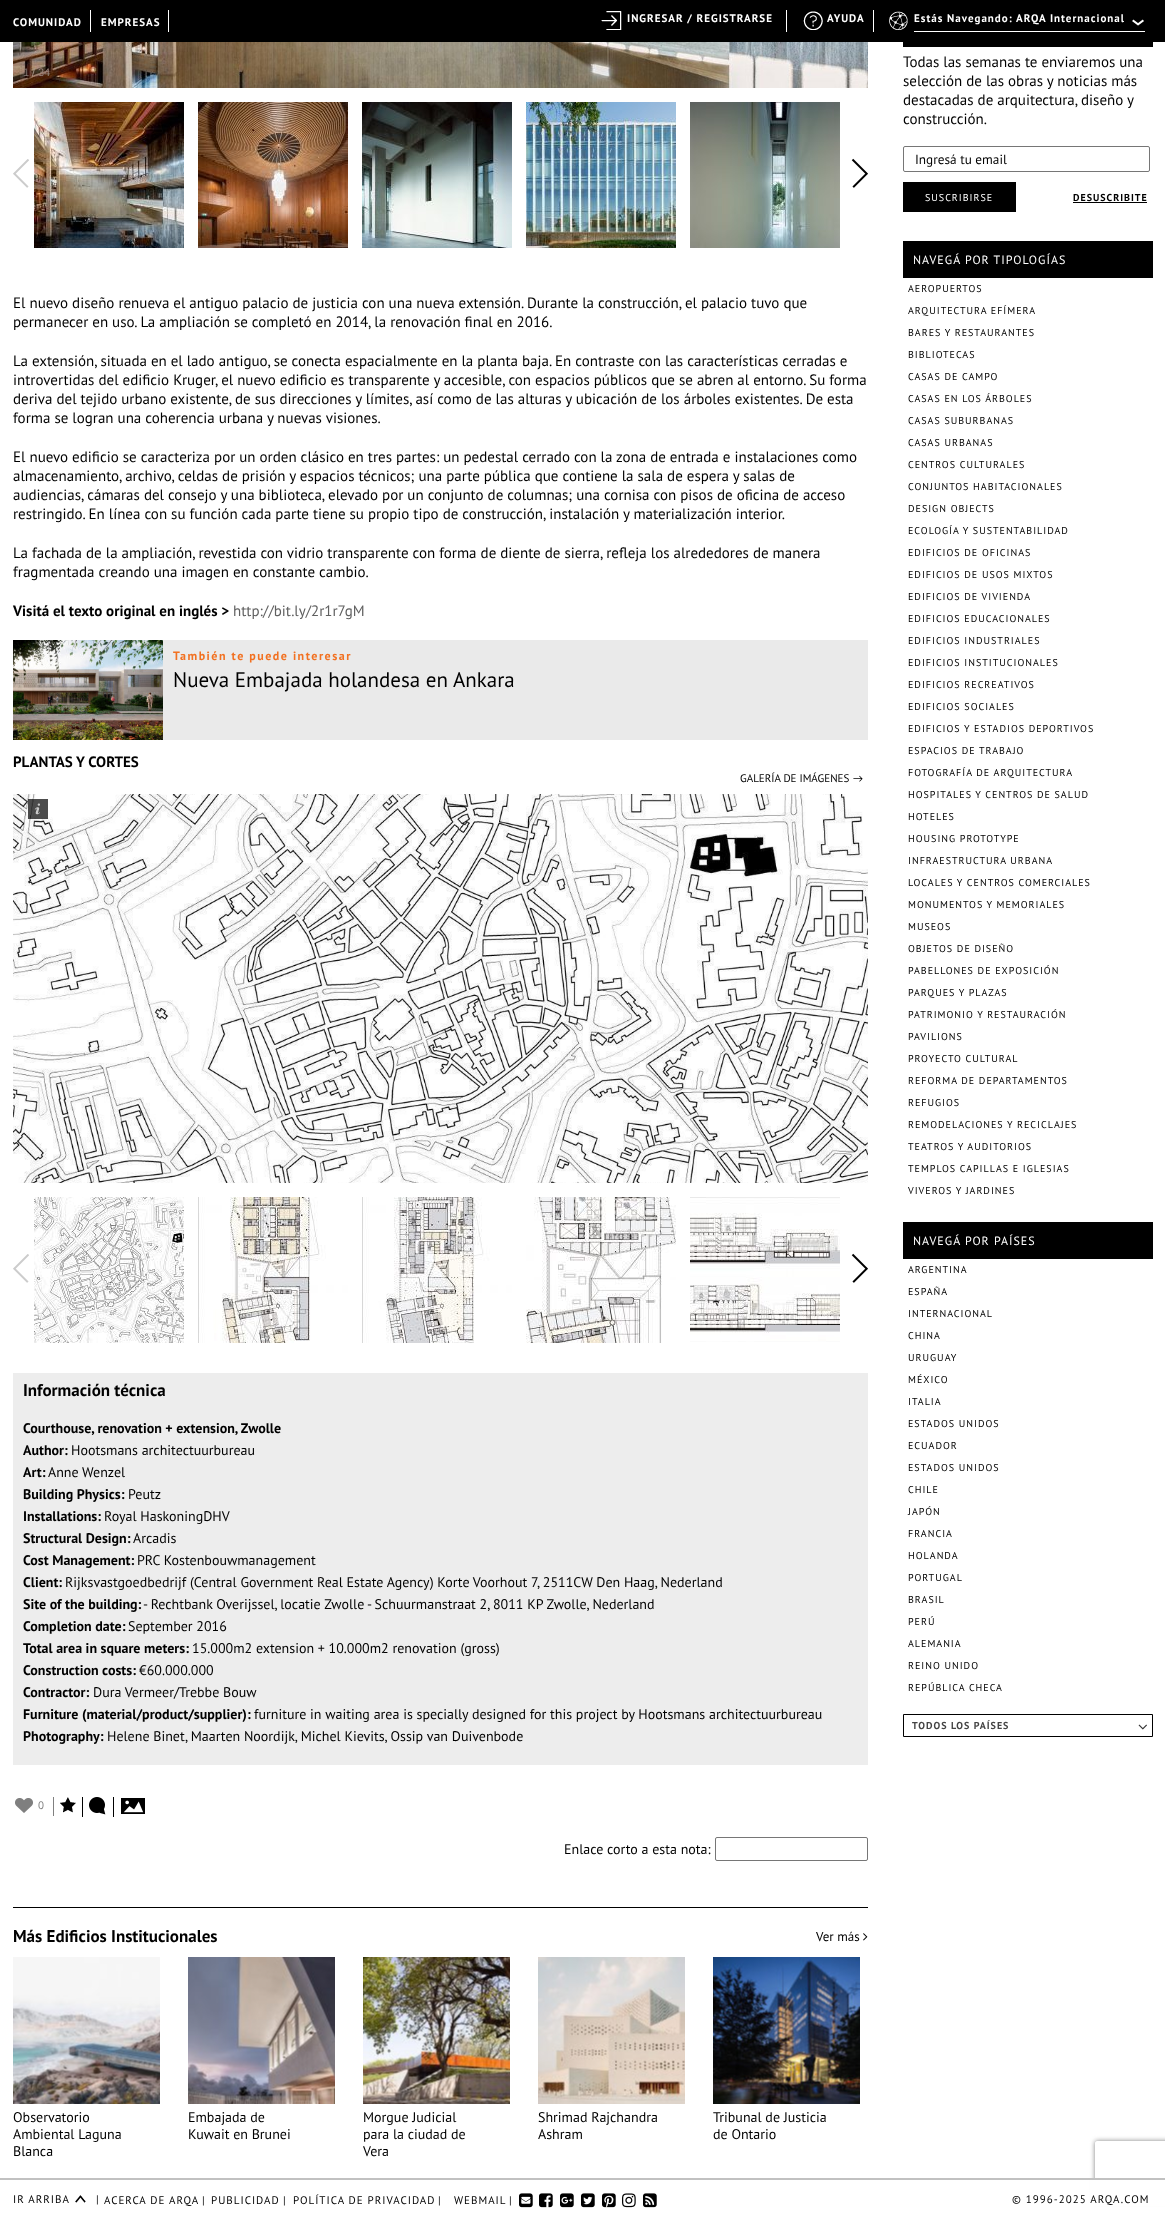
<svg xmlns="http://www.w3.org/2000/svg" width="1165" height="2215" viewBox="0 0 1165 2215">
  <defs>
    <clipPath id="clip1"><path d="M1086 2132H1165V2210H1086ZM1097 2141H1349C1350 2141 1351 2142 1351 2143V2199C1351 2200 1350 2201 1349 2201H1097C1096 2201 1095 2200 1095 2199V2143C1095 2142 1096 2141 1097 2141Z" clip-rule="evenodd"/></clipPath>
  </defs>
  <rect width="100%" height="100%" fill="#fff"/>
  <path d="M0 0h1165v42H0z" fill="#000"/>
  <path d="M90 10h1v22H90z" fill="#fff"/>
  <path d="M168 10h1v22H168z" fill="#fff"/>
  <path d="M786 10h1v22H786z" fill="#fff"/>
  <image x="601" y="11" width="21" height="19" href="img/1.png"/>
  <path d="M873 10h1v22H873z" fill="#fff"/>
  <image x="803" y="11" width="20" height="19" href="img/2.png"/>
  <image x="889" y="11" width="19" height="19" href="img/3.png"/>
  <path d="M914 31h231v1H914z" fill="#fff"/>
  <image x="1132" y="19" width="12" height="7" href="img/4.png"/>
  <image x="13" y="42" width="855" height="46" href="img/5.png"/>
  <image x="13" y="159" width="16" height="29" href="img/6.png"/>
  <image x="34" y="102" width="150" height="146" href="img/7.png"/>
  <image x="198" y="102" width="150" height="146" href="img/8.png"/>
  <image x="362" y="102" width="150" height="146" href="img/9.png"/>
  <image x="526" y="102" width="150" height="146" href="img/10.png"/>
  <image x="690" y="102" width="150" height="146" href="img/11.png"/>
  <image x="851" y="158" width="17" height="30" href="img/12.png"/>
  <path d="M163 640h705v100H163z" fill="#eaeaea"/>
  <image x="13" y="640" width="150" height="100" href="img/13.png"/>
  <image x="13" y="794" width="855" height="389" href="img/14.png"/>
  <image x="34" y="999" width="3" height="1" href="img/15.png"/>
  <image x="843" y="987" width="15" height="16" href="img/16.png"/>
  <path d="M28 799h20v20H28z" fill="#000000b3"/>
  <image x="34" y="803" width="6" height="12" href="img/17.png"/>
  <image x="13" y="1254" width="16" height="29" href="img/6.png"/>
  <image x="34" y="1197" width="150" height="146" href="img/18.png"/>
  <image x="198" y="1197" width="150" height="146" href="img/19.png"/>
  <image x="362" y="1197" width="150" height="146" href="img/20.png"/>
  <image x="526" y="1197" width="150" height="146" href="img/21.png"/>
  <image x="690" y="1197" width="150" height="146" href="img/22.png"/>
  <image x="851" y="1253" width="17" height="30" href="img/12.png"/>
  <path d="M13 1373h855v392H13z" fill="#ededed"/>
  <path d="M13 1907h855v1H13z" fill="#000"/>
  <image x="15" y="1798" width="18" height="15" href="img/23.png"/>
  <path d="M53 1797h1v19H53z" fill="#808080"/>
  <image x="60" y="1797" width="16" height="16" href="img/24.png"/>
  <image x="89" y="1797" width="17" height="18" href="img/25.png"/>
  <path d="M113 1797h1v20H113z" fill="#000"/>
  <path d="M82 1797h1v20H82z" fill="#000"/>
  <image x="121" y="1798" width="24" height="16" href="img/26.png"/>
  <rect x="715.5" y="1837.5" width="152" height="23" rx="1.5" fill="none" stroke="#767676"/>
  <image x="863" y="1933" width="5" height="8" href="img/27.png"/>
  <image x="13" y="1957" width="147" height="147" href="img/28.png"/>
  <image x="188" y="1957" width="147" height="147" href="img/29.png"/>
  <image x="363" y="1957" width="147" height="147" href="img/30.png"/>
  <image x="538" y="1957" width="147" height="147" href="img/31.png"/>
  <image x="713" y="1957" width="147" height="147" href="img/32.png"/>
  <path d="M903 42h250v5H903z" fill="#000"/>
  <rect x="903.5" y="146.5" width="246" height="25" rx="1.5" fill="none" stroke="#767676"/>
  <path d="M903 182h113v30H903z" fill="#000"/>
  <path d="M1073 202h74v1H1073z" fill="#000"/>
  <path d="M903 241h250v37H903z" fill="#000"/>
  <path d="M903 1222h250v37H903z" fill="#000"/>
  <path d="M903.5 1714.5h249v22H903.5z" fill="none" stroke="#000"/>
  <image x="1138" y="1724" width="9" height="6" href="img/33.png"/>
  <g clip-path="url(#clip1)">
    <rect x="1095" y="2141" width="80" height="60" rx="2" fill="#808080" filter="blur(2.5px)"/>
  </g>
  <path d="M1090 2180h75v26H1090z" fill="#fff"/>
  <path d="M0 2178h1165v2H0z" fill="#c1c1c1"/>
  <image x="75" y="2195" width="11" height="8" href="img/34.png"/>
  <image x="519" y="2193" width="14" height="15" href="img/35.png"/>
  <image x="539" y="2193" width="14" height="15" href="img/36.png"/>
  <image x="560" y="2193" width="14" height="15" href="img/37.png"/>
  <image x="581" y="2193" width="14" height="15" href="img/38.png"/>
  <image x="602" y="2193" width="14" height="15" href="img/39.png"/>
  <image x="622" y="2193" width="14" height="15" href="img/40.png"/>
  <image x="643" y="2193" width="14" height="15" href="img/41.png"/>
  <g font-family="PT Sans" font-size="11" font-weight="bold" letter-spacing="1" fill="#fff">
    <text x="13" y="26">COMUNIDAD</text>
    <text x="101" y="26">EMPRESAS</text>
    <text x="627" y="22">INGRESAR / REGISTRARSE</text>
    <text x="827" y="22">AYUDA</text>
    <text x="914" y="22">Estás Navegando: ARQA Internacional</text>
  </g>
  <text x="23" y="76" font-family="Liberation Sans" font-size="11" fill="#887c77">1</text>
  <text x="32" y="76" font-family="Liberation Sans" font-size="11" fill="#a69588">/</text>
  <text x="38" y="76" font-family="Liberation Sans" font-size="11" fill="#98857b">34</text>
  <g font-family="PT Sans" font-size="15" fill="#000">
    <text x="13" y="308">El nuevo diseño renueva el antiguo palacio de justicia con una nueva extensión. Durante la construcción, el palacio tuvo que</text>
    <text x="13" y="327">permanecer en uso. La ampliación se completó en 2014, la renovación final en 2016.</text>
    <text x="13" y="366">La extensión, situada en el lado antiguo, se conecta espacialmente en la planta baja. En contraste con las características cerradas e</text>
    <text x="13" y="385">introvertidas del edificio Kruger, el nuevo edificio es transparente y accesible, con espacios públicos que se abren al entorno. Su forma</text>
    <text x="13" y="404">deriva del tejido urbano existente, de sus direcciones y límites, así como de las alturas y ubicación de los árboles existentes. De esta</text>
    <text x="13" y="423">forma se logran una coherencia urbana y nuevas visiones.</text>
    <text x="13" y="462">El nuevo edificio se caracteriza por un orden clásico en tres partes: un pedestal cerrado con la zona de entrada e instalaciones como</text>
    <text x="13" y="481">almacenamiento, archivo, celdas de prisión y espacios técnicos; una parte pública que contiene la sala de espera y salas de</text>
    <text x="13" y="500">audiencias, cámaras del consejo y una biblioteca, elevado por un conjunto de columnas; una cornisa con pisos de oficina de acceso</text>
    <text x="13" y="519">restringido. En línea con su función cada parte tiene su propio tipo de construcción, instalación y materialización interior.</text>
    <text x="13" y="558">La fachada de la ampliación, revestida con vidrio transparente con forma de diente de sierra, refleja los alrededores de manera</text>
    <text x="13" y="577">fragmentada creando una imagen en constante cambio.</text>
  </g>
  <text x="13" y="616" font-family="PT Sans" font-size="15" font-weight="bold" fill="#000">Visitá el texto original en inglés &gt;</text>
  <text x="233" y="616" font-family="PT Sans" font-size="15" fill="#606060">http://bit.ly/2r1r7gM</text>
  <text x="173" y="660" font-family="PT Sans" font-size="12" font-weight="bold" letter-spacing="1.5" fill="#f27121">También te puede interesar</text>
  <text x="173" y="687" font-family="PT Sans" font-size="21" fill="#000">Nueva Embajada holandesa en Ankara</text>
  <text x="13" y="767" font-family="PT Sans" font-size="15" font-weight="bold" fill="#000">PLANTAS Y CORTES</text>
  <text x="740" y="782" font-family="PT Sans" font-size="11" fill="#000">GALERÍA DE IMÁGENES</text>
  <text x="853" y="782" font-family="Carlito" font-size="11" fill="#000">→</text>
  <text x="23" y="1396" font-family="PT Sans" font-size="17" font-weight="bold" fill="#000">Información técnica</text>
  <g font-family="PT Sans" font-size="14" font-weight="bold" fill="#000">
    <text x="23" y="1433">Courthouse, renovation + extension, Zwolle</text>
    <text x="23" y="1455">Author:</text>
  </g>
  <text x="71" y="1455" font-family="PT Sans" font-size="14" fill="#000">Hootsmans architectuurbureau</text>
  <text x="23" y="1477" font-family="PT Sans" font-size="14" font-weight="bold" fill="#000">Art:</text>
  <text x="48" y="1477" font-family="PT Sans" font-size="14" fill="#000">Anne Wenzel</text>
  <text x="23" y="1499" font-family="PT Sans" font-size="14" font-weight="bold" fill="#000">Building Physics:</text>
  <text x="128" y="1499" font-family="PT Sans" font-size="14" fill="#000">Peutz</text>
  <text x="23" y="1521" font-family="PT Sans" font-size="14" font-weight="bold" fill="#000">Installations:</text>
  <text x="104" y="1521" font-family="PT Sans" font-size="14" fill="#000">Royal HaskoningDHV</text>
  <text x="23" y="1543" font-family="PT Sans" font-size="14" font-weight="bold" fill="#000">Structural Design:</text>
  <text x="133" y="1543" font-family="PT Sans" font-size="14" fill="#000">Arcadis</text>
  <text x="23" y="1565" font-family="PT Sans" font-size="14" font-weight="bold" fill="#000">Cost Management:</text>
  <text x="137" y="1565" font-family="PT Sans" font-size="14" fill="#000">PRC Kostenbouwmanagement</text>
  <text x="23" y="1587" font-family="PT Sans" font-size="14" font-weight="bold" fill="#000">Client:</text>
  <text x="65" y="1587" font-family="PT Sans" font-size="14" fill="#000">Rijksvastgoedbedrijf (Central Government Real Estate Agency) Korte Voorhout 7, 2511CW Den Haag, Nederland</text>
  <text x="23" y="1609" font-family="PT Sans" font-size="14" font-weight="bold" fill="#000">Site of the building:</text>
  <text x="143" y="1609" font-family="PT Sans" font-size="14" fill="#000">- Rechtbank Overijssel, locatie Zwolle - Schuurmanstraat 2, 8011 KP Zwolle, Nederland</text>
  <text x="23" y="1631" font-family="PT Sans" font-size="14" font-weight="bold" fill="#000">Completion date:</text>
  <text x="128" y="1631" font-family="PT Sans" font-size="14" fill="#000">September 2016</text>
  <text x="23" y="1653" font-family="PT Sans" font-size="14" font-weight="bold" fill="#000">Total area in square meters:</text>
  <text x="192" y="1653" font-family="PT Sans" font-size="14" fill="#000">15.000m2 extension + 10.000m2 renovation (gross)</text>
  <text x="23" y="1675" font-family="PT Sans" font-size="14" font-weight="bold" fill="#000">Construction costs:</text>
  <text x="139" y="1675" font-family="PT Sans" font-size="14" fill="#000">€60.000.000</text>
  <text x="23" y="1697" font-family="PT Sans" font-size="14" font-weight="bold" fill="#000">Contractor:</text>
  <text x="93" y="1697" font-family="PT Sans" font-size="14" fill="#000">Dura Vermeer/Trebbe Bouw</text>
  <text x="23" y="1719" font-family="PT Sans" font-size="14" font-weight="bold" fill="#000">Furniture (material/product/supplier):</text>
  <text x="254" y="1719" font-family="PT Sans" font-size="14" fill="#000">furniture in waiting area is specially designed for this project by Hootsmans architectuurbureau</text>
  <text x="23" y="1741" font-family="PT Sans" font-size="14" font-weight="bold" fill="#000">Photography:</text>
  <text x="107" y="1741" font-family="PT Sans" font-size="14" fill="#000">Helene Binet, Maarten Noordijk, Michel Kievits, Ossip van Duivenbode</text>
  <text x="38" y="1809" font-family="PT Sans" font-size="11" fill="#808080">0</text>
  <text x="564" y="1854" font-family="PT Sans" font-size="14" fill="#000">Enlace corto a esta nota:</text>
  <text x="13" y="1942" font-family="PT Sans" font-size="17" font-weight="bold" fill="#000">Más Edificios Institucionales</text>
  <text x="816" y="1941" font-family="PT Sans" font-size="13" fill="#000">Ver más</text>
  <g font-family="PT Sans" font-size="14" fill="#000">
    <text x="13" y="2122">Observatorio</text>
    <text x="13" y="2139">Ambiental Laguna</text>
    <text x="13" y="2156">Blanca</text>
    <text x="188" y="2122">Embajada de</text>
    <text x="188" y="2139">Kuwait en Brunei</text>
    <text x="363" y="2122">Morgue Judicial</text>
    <text x="363" y="2139">para la ciudad de</text>
    <text x="363" y="2156">Vera</text>
    <text x="538" y="2122">Shrimad Rajchandra</text>
    <text x="538" y="2139">Ashram</text>
    <text x="713" y="2122">Tribunal de Justicia</text>
    <text x="713" y="2139">de Ontario</text>
  </g>
  <g font-family="PT Sans" font-size="15" fill="#000">
    <text x="903" y="67">Todas las semanas te enviaremos una</text>
    <text x="903" y="86">selección de las obras y noticias más</text>
    <text x="903" y="105">destacadas de arquitectura, diseño y</text>
    <text x="903" y="124">construcción.</text>
  </g>
  <text x="915" y="164" font-family="PT Sans" font-size="13.25" fill="#000">Ingresá tu email</text>
  <text x="925" y="201" font-family="PT Sans" font-size="10" letter-spacing="1" fill="#fff">SUSCRIBIRSE</text>
  <text x="1073" y="201" font-family="PT Sans" font-size="10" font-weight="bold" letter-spacing="1" fill="#000">DESUSCRIBITE</text>
  <text x="913" y="264" font-family="PT Sans" font-size="12" letter-spacing="1" fill="#fff">NAVEGÁ POR TIPOLOGÍAS</text>
  <g font-family="PT Sans" font-size="10" letter-spacing="1" fill="#000">
    <text x="908" y="292">AEROPUERTOS</text>
    <text x="908" y="314">ARQUITECTURA EFÍMERA</text>
    <text x="908" y="336">BARES Y RESTAURANTES</text>
    <text x="908" y="358">BIBLIOTECAS</text>
    <text x="908" y="380">CASAS DE CAMPO</text>
    <text x="908" y="402">CASAS EN LOS ÁRBOLES</text>
    <text x="908" y="424">CASAS SUBURBANAS</text>
    <text x="908" y="446">CASAS URBANAS</text>
    <text x="908" y="468">CENTROS CULTURALES</text>
    <text x="908" y="490">CONJUNTOS HABITACIONALES</text>
    <text x="908" y="512">DESIGN OBJECTS</text>
    <text x="908" y="534">ECOLOGÍA Y SUSTENTABILIDAD</text>
    <text x="908" y="556">EDIFICIOS DE OFICINAS</text>
    <text x="908" y="578">EDIFICIOS DE USOS MIXTOS</text>
    <text x="908" y="600">EDIFICIOS DE VIVIENDA</text>
    <text x="908" y="622">EDIFICIOS EDUCACIONALES</text>
    <text x="908" y="644">EDIFICIOS INDUSTRIALES</text>
    <text x="908" y="666">EDIFICIOS INSTITUCIONALES</text>
    <text x="908" y="688">EDIFICIOS RECREATIVOS</text>
    <text x="908" y="710">EDIFICIOS SOCIALES</text>
    <text x="908" y="732">EDIFICIOS Y ESTADIOS DEPORTIVOS</text>
    <text x="908" y="754">ESPACIOS DE TRABAJO</text>
    <text x="908" y="776">FOTOGRAFÍA DE ARQUITECTURA</text>
    <text x="908" y="798">HOSPITALES Y CENTROS DE SALUD</text>
    <text x="908" y="820">HOTELES</text>
    <text x="908" y="842">HOUSING PROTOTYPE</text>
    <text x="908" y="864">INFRAESTRUCTURA URBANA</text>
    <text x="908" y="886">LOCALES Y CENTROS COMERCIALES</text>
    <text x="908" y="908">MONUMENTOS Y MEMORIALES</text>
    <text x="908" y="930">MUSEOS</text>
    <text x="908" y="952">OBJETOS DE DISEÑO</text>
    <text x="908" y="974">PABELLONES DE EXPOSICIÓN</text>
    <text x="908" y="996">PARQUES Y PLAZAS</text>
    <text x="908" y="1018">PATRIMONIO Y RESTAURACIÓN</text>
    <text x="908" y="1040">PAVILIONS</text>
    <text x="908" y="1062">PROYECTO CULTURAL</text>
    <text x="908" y="1084">REFORMA DE DEPARTAMENTOS</text>
    <text x="908" y="1106">REFUGIOS</text>
    <text x="908" y="1128">REMODELACIONES Y RECICLAJES</text>
    <text x="908" y="1150">TEATROS Y AUDITORIOS</text>
    <text x="908" y="1172">TEMPLOS CAPILLAS E IGLESIAS</text>
    <text x="908" y="1194">VIVEROS Y JARDINES</text>
  </g>
  <text x="913" y="1245" font-family="PT Sans" font-size="12" letter-spacing="1" fill="#fff">NAVEGÁ POR PAÍSES</text>
  <g font-family="PT Sans" font-size="10" letter-spacing="1" fill="#000">
    <text x="908" y="1273">ARGENTINA</text>
    <text x="908" y="1295">ESPAÑA</text>
    <text x="908" y="1317">INTERNACIONAL</text>
    <text x="908" y="1339">CHINA</text>
    <text x="908" y="1361">URUGUAY</text>
    <text x="908" y="1383">MÉXICO</text>
    <text x="908" y="1405">ITALIA</text>
    <text x="908" y="1427">ESTADOS UNIDOS</text>
    <text x="908" y="1449">ECUADOR</text>
    <text x="908" y="1471">ESTADOS UNIDOS</text>
    <text x="908" y="1493">CHILE</text>
    <text x="908" y="1515">JAPÓN</text>
    <text x="908" y="1537">FRANCIA</text>
    <text x="908" y="1559">HOLANDA</text>
    <text x="908" y="1581">PORTUGAL</text>
    <text x="908" y="1603">BRASIL</text>
    <text x="908" y="1625">PERÚ</text>
    <text x="908" y="1647">ALEMANIA</text>
    <text x="908" y="1669">REINO UNIDO</text>
    <text x="908" y="1691">REPÚBLICA CHECA</text>
  </g>
  <text x="912" y="1729" font-family="PT Sans" font-size="10" font-weight="bold" letter-spacing="1" fill="#444">TODOS LOS PAÍSES</text>
  <g font-family="PT Sans" font-size="11" letter-spacing="1" fill="#000">
    <text x="13" y="2203">IR ARRIBA</text>
    <text x="96" y="2203">|</text>
    <text x="104" y="2204">ACERCA DE ARQA</text>
    <text x="202" y="2204">|</text>
    <text x="211" y="2204">PUBLICIDAD</text>
    <text x="283" y="2204">|</text>
    <text x="293" y="2204">POLÍTICA DE PRIVACIDAD</text>
    <text x="438" y="2204">|</text>
    <text x="454" y="2204">WEBMAIL</text>
    <text x="509" y="2204">|</text>
    <text x="1012" y="2203">© 1996-2025 ARQA.COM</text>
  </g>
</svg>
